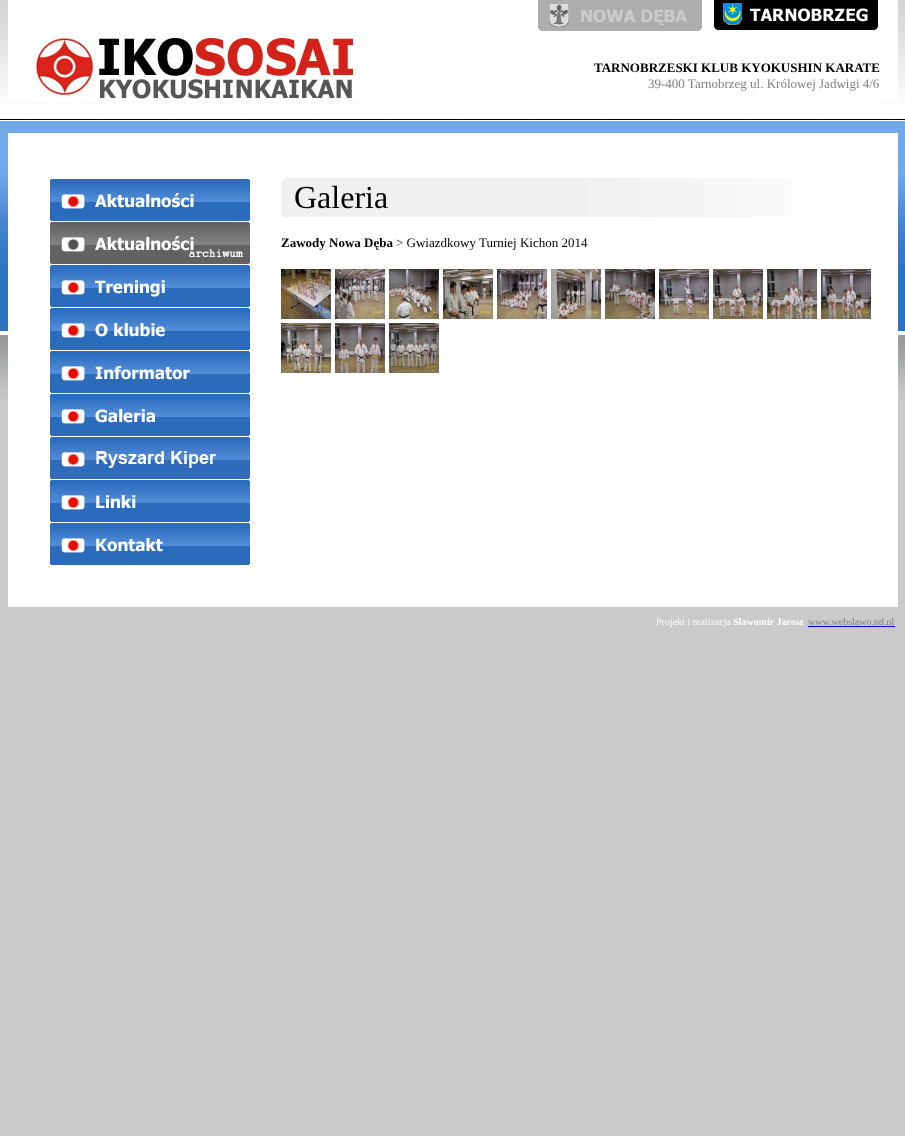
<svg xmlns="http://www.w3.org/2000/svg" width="905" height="1136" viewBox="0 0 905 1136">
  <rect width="100%" height="100%" fill="#fff"/>
  <image x="0" y="0" width="905" height="1136" href="img/1.png"/>
  <path d="M8 0h523v35H8z" fill="#fff"/>
  <image x="531" y="0" width="177" height="35" href="img/2.png"/>
  <image x="708" y="0" width="172" height="35" href="img/3.png"/>
  <path d="M880 0h18v102H880z" fill="#fff"/>
  <path d="M8 35h18v67H8z" fill="#fff"/>
  <image x="26" y="35" width="335" height="67" href="img/4.png"/>
  <path d="M361 35h519v74H361z" fill="#fff"/>
  <path d="M8 133h890v474H8z" fill="#fff"/>
  <image x="50" y="179" width="200" height="42" href="img/5.png"/>
  <image x="50" y="222" width="200" height="42" href="img/6.png"/>
  <image x="50" y="265" width="200" height="42" href="img/7.png"/>
  <image x="50" y="308" width="200" height="42" href="img/8.png"/>
  <image x="50" y="351" width="200" height="42" href="img/9.png"/>
  <image x="50" y="394" width="200" height="42" href="img/10.png"/>
  <image x="50" y="437" width="200" height="42" href="img/11.png"/>
  <image x="50" y="480" width="200" height="42" href="img/12.png"/>
  <image x="50" y="523" width="200" height="42" href="img/13.png"/>
  <image x="281" y="178" width="510" height="39" href="img/14.png"/>
  <image x="281" y="269" width="50" height="50" href="img/15.png"/>
  <image x="335" y="269" width="50" height="50" href="img/16.png"/>
  <image x="389" y="269" width="50" height="50" href="img/17.png"/>
  <image x="443" y="269" width="50" height="50" href="img/18.png"/>
  <image x="497" y="269" width="50" height="50" href="img/19.png"/>
  <image x="551" y="269" width="50" height="50" href="img/20.png"/>
  <image x="605" y="269" width="50" height="50" href="img/21.png"/>
  <image x="659" y="269" width="50" height="50" href="img/22.png"/>
  <image x="713" y="269" width="50" height="50" href="img/23.png"/>
  <image x="767" y="269" width="50" height="50" href="img/24.png"/>
  <image x="821" y="269" width="50" height="50" href="img/25.png"/>
  <image x="281" y="323" width="50" height="50" href="img/26.png"/>
  <image x="335" y="323" width="50" height="50" href="img/27.png"/>
  <image x="389" y="323" width="50" height="50" href="img/28.png"/>
  <path d="M808 626h87v1H808z" fill="#00e"/>
  <text x="594" y="72" font-family="Liberation Serif" font-size="13" font-weight="bold" fill="#000">TARNOBRZESKI KLUB KYOKUSHIN KARATE</text>
  <text x="648" y="88" font-family="Liberation Serif" font-size="13" fill="#808080">39-400 Tarnobrzeg ul. Królowej Jadwigi 4/6</text>
  <text x="294" y="208" font-family="Liberation Serif" font-size="32" fill="#000">Galeria</text>
  <text x="281" y="247" font-family="Liberation Serif" font-size="13" font-weight="bold" fill="#000">Zawody Nowa Dęba</text>
  <text x="396" y="247" font-family="Liberation Serif" font-size="13" fill="#000">&gt; Gwiazdkowy Turniej Kichon 2014</text>
  <text x="656" y="625" font-family="Liberation Serif" font-size="10" fill="#fff">Projekt i realizacja</text>
  <text x="733" y="625" font-family="Liberation Serif" font-size="10" font-weight="bold" fill="#fff">Sławomir Jarosz</text>
  <text x="808" y="625" font-family="Liberation Serif" font-size="10" fill="#808080">www.webslawo.nd.pl</text>
</svg>
